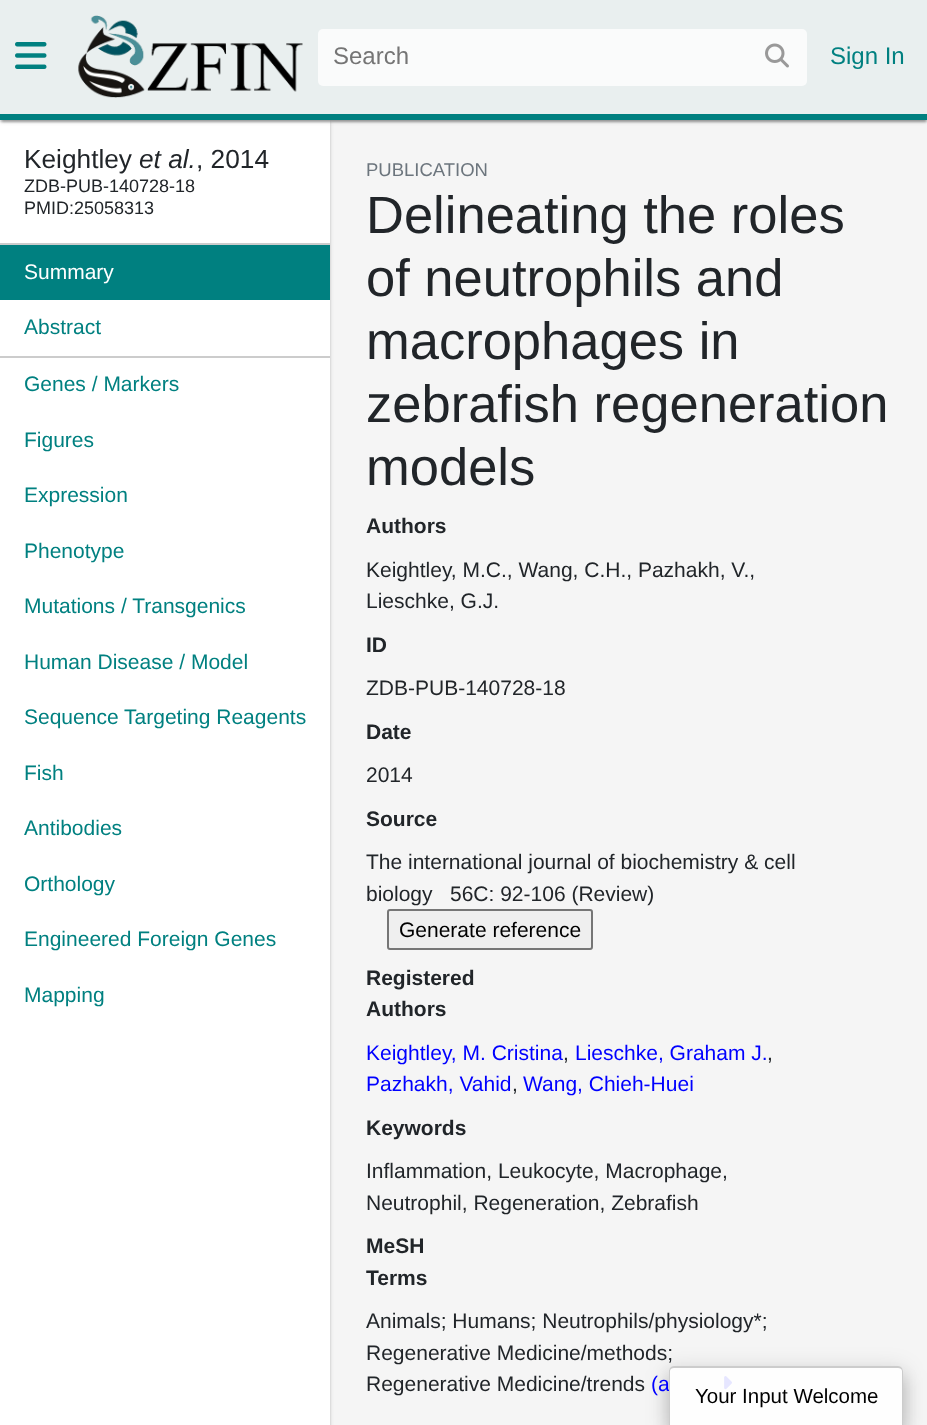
<svg xmlns="http://www.w3.org/2000/svg" width="927" height="1425" viewBox="0 0 927 1425">
  <defs>
    <clipPath id="clip1"><path d="M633 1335H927V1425H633ZM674 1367H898C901 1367 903 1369 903 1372V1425H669V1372C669 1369 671 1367 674 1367Z" clip-rule="evenodd"/></clipPath>
    <clipPath id="clip2"><path d="M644 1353H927V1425H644ZM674 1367H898C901 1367 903 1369 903 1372V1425H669V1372C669 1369 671 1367 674 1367Z" clip-rule="evenodd"/></clipPath>
  </defs>
  <rect width="100%" height="100%" fill="#f5f5f5"/>
  <path d="M0 122h330v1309H0z" fill="#0000001f" filter="blur(2px)"/>
  <path d="M0 122h330v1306H0z" fill="#00000024" filter="blur(1px)"/>
  <path d="M0 120h330v1305H0z" fill="#fff"/>
  <path d="M0 2h927v120H0z" fill="#0000001f" filter="blur(2px)"/>
  <path d="M0 2h927v120H0z" fill="#00000024" filter="blur(1px)"/>
  <path d="M2 5h924v117H2z" fill="#00000033" filter="blur(1px)"/>
  <path d="M0 0h927v114H0z" fill="#e9efef"/>
  <path d="M0 114h927v6H0z" fill="#008080"/>
  <image x="15" y="42" width="32" height="27" href="img/1.png"/>
  <image x="78" y="15" width="225" height="83" href="img/2.png"/>
  <rect x="318" y="29" width="489" height="57" rx="5" fill="#fafbfb"/>
  <image x="765" y="43" width="24" height="25" href="img/3.png"/>
  <path d="M0 243h330v2H0z" fill="#ccc"/>
  <path d="M0 245h330v55H0z" fill="#008080"/>
  <path d="M0 356h330v2H0z" fill="#ccc"/>
  <rect x="388" y="910" width="204" height="39" rx="2" fill="#efefef" stroke="#767676" stroke-width="2"/>
  <image x="724" y="1376" width="8" height="14" href="img/4.png"/>
  <g clip-path="url(#clip1)">
    <rect x="666" y="1368" width="240" height="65" rx="8" fill="#0000001f" filter="blur(10.5px)"/>
  </g>
  <g clip-path="url(#clip2)">
    <rect x="668" y="1377" width="237" height="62" rx="6" fill="#00000024" filter="blur(7.5px)"/>
  </g>
  <text x="333" y="64" font-family="Liberation Sans" font-size="24" fill="#757575">Search</text>
  <text x="830" y="64" font-family="Liberation Sans" font-size="24" fill="#008080">Sign In</text>
  <text x="24" y="168" font-family="Liberation Sans" font-size="26.25" fill="#212529">Keightley</text>
  <text x="139" y="168" font-family="Liberation Sans" font-size="26.25" font-style="italic" fill="#212529">et al.</text>
  <text x="196" y="168" font-family="Liberation Sans" font-size="26.25" fill="#212529">, 2014</text>
  <g font-family="Liberation Sans" font-size="18" fill="#212529">
    <text x="24" y="192">ZDB-PUB-140728-18</text>
    <text x="24" y="214">PMID:25058313</text>
  </g>
  <text x="24" y="279" font-family="Liberation Sans" font-size="21" fill="#fff">Summary</text>
  <g font-family="Liberation Sans" font-size="21" fill="#008080">
    <text x="24" y="334">Abstract</text>
    <text x="24" y="391">Genes / Markers</text>
    <text x="24" y="447">Figures</text>
    <text x="24" y="502">Expression</text>
    <text x="24" y="558">Phenotype</text>
    <text x="24" y="613">Mutations / Transgenics</text>
    <text x="24" y="669">Human Disease / Model</text>
    <text x="24" y="724">Sequence Targeting Reagents</text>
    <text x="24" y="780">Fish</text>
    <text x="24" y="835">Antibodies</text>
    <text x="24" y="891">Orthology</text>
    <text x="24" y="946">Engineered Foreign Genes</text>
    <text x="24" y="1002">Mapping</text>
  </g>
  <text x="366" y="176" font-family="Liberation Sans" font-size="18.5" fill="#6c757d">PUBLICATION</text>
  <g font-family="Liberation Sans" font-size="52.5" fill="#212529">
    <text x="366" y="233">Delineating the roles</text>
    <text x="366" y="296">of neutrophils and</text>
    <text x="366" y="359">macrophages in</text>
    <text x="366" y="422">zebrafish regeneration</text>
    <text x="366" y="485">models</text>
  </g>
  <text x="366" y="533" font-family="Liberation Sans" font-size="21" font-weight="bold" fill="#212529">Authors</text>
  <g font-family="Liberation Sans" font-size="21" fill="#212529">
    <text x="366" y="577">Keightley, M.C., Wang, C.H., Pazhakh, V.,</text>
    <text x="366" y="608">Lieschke, G.J.</text>
  </g>
  <text x="366" y="652" font-family="Liberation Sans" font-size="21" font-weight="bold" fill="#212529">ID</text>
  <text x="366" y="695" font-family="Liberation Sans" font-size="21" fill="#212529">ZDB-PUB-140728-18</text>
  <text x="366" y="739" font-family="Liberation Sans" font-size="21" font-weight="bold" fill="#212529">Date</text>
  <text x="366" y="782" font-family="Liberation Sans" font-size="21" fill="#212529">2014</text>
  <text x="366" y="826" font-family="Liberation Sans" font-size="21" font-weight="bold" fill="#212529">Source</text>
  <g font-family="Liberation Sans" font-size="21" fill="#212529">
    <text x="366" y="869">The international journal of biochemistry &amp; cell</text>
    <text x="366" y="901">biology</text>
    <text x="450" y="901">56C: 92-106 (Review)</text>
  </g>
  <text x="399" y="937" font-family="Liberation Sans" font-size="21" fill="#000">Generate reference</text>
  <g font-family="Liberation Sans" font-size="21" font-weight="bold" fill="#212529">
    <text x="366" y="985">Registered</text>
    <text x="366" y="1016">Authors</text>
  </g>
  <text x="366" y="1060" font-family="Liberation Sans" font-size="21" fill="#00f">Keightley, M. Cristina</text>
  <text x="563" y="1060" font-family="Liberation Sans" font-size="21" fill="#212529">,</text>
  <text x="575" y="1060" font-family="Liberation Sans" font-size="21" fill="#00f">Lieschke, Graham J.</text>
  <text x="767" y="1060" font-family="Liberation Sans" font-size="21" fill="#212529">,</text>
  <text x="366" y="1091" font-family="Liberation Sans" font-size="21" fill="#00f">Pazhakh, Vahid</text>
  <text x="512" y="1091" font-family="Liberation Sans" font-size="21" fill="#212529">,</text>
  <text x="523" y="1091" font-family="Liberation Sans" font-size="21" fill="#00f">Wang, Chieh-Huei</text>
  <text x="366" y="1135" font-family="Liberation Sans" font-size="21" font-weight="bold" fill="#212529">Keywords</text>
  <g font-family="Liberation Sans" font-size="21" fill="#212529">
    <text x="366" y="1178">Inflammation, Leukocyte, Macrophage,</text>
    <text x="366" y="1210">Neutrophil, Regeneration, Zebrafish</text>
  </g>
  <g font-family="Liberation Sans" font-size="21" font-weight="bold" fill="#212529">
    <text x="366" y="1253">MeSH</text>
    <text x="366" y="1285">Terms</text>
  </g>
  <g font-family="Liberation Sans" font-size="21" fill="#212529">
    <text x="366" y="1328">Animals; Humans; Neutrophils/physiology*;</text>
    <text x="366" y="1360">Regenerative Medicine/methods;</text>
    <text x="366" y="1391">Regenerative Medicine/trends</text>
  </g>
  <text x="651" y="1391" font-family="Liberation Sans" font-size="21" fill="#00f">(a</text>
  <path d="M674 1367H898C901 1367 903 1369 903 1372V1425H669V1372C669 1369 671 1367 674 1367Z" fill="#ffffffe6"/>
  <path d="M674 1366H898C901 1366 903 1369 903 1371V1425H669V1371C669 1369 671 1366 674 1366ZM674 1368H898C900 1368 902 1369 902 1371V1425H670V1371C670 1369 672 1368 674 1368Z" fill="#ccc" fill-rule="evenodd"/>
  <text x="695" y="1403" font-family="Liberation Sans" font-size="20.5" fill="#000">Your Input Welcome</text>
</svg>
